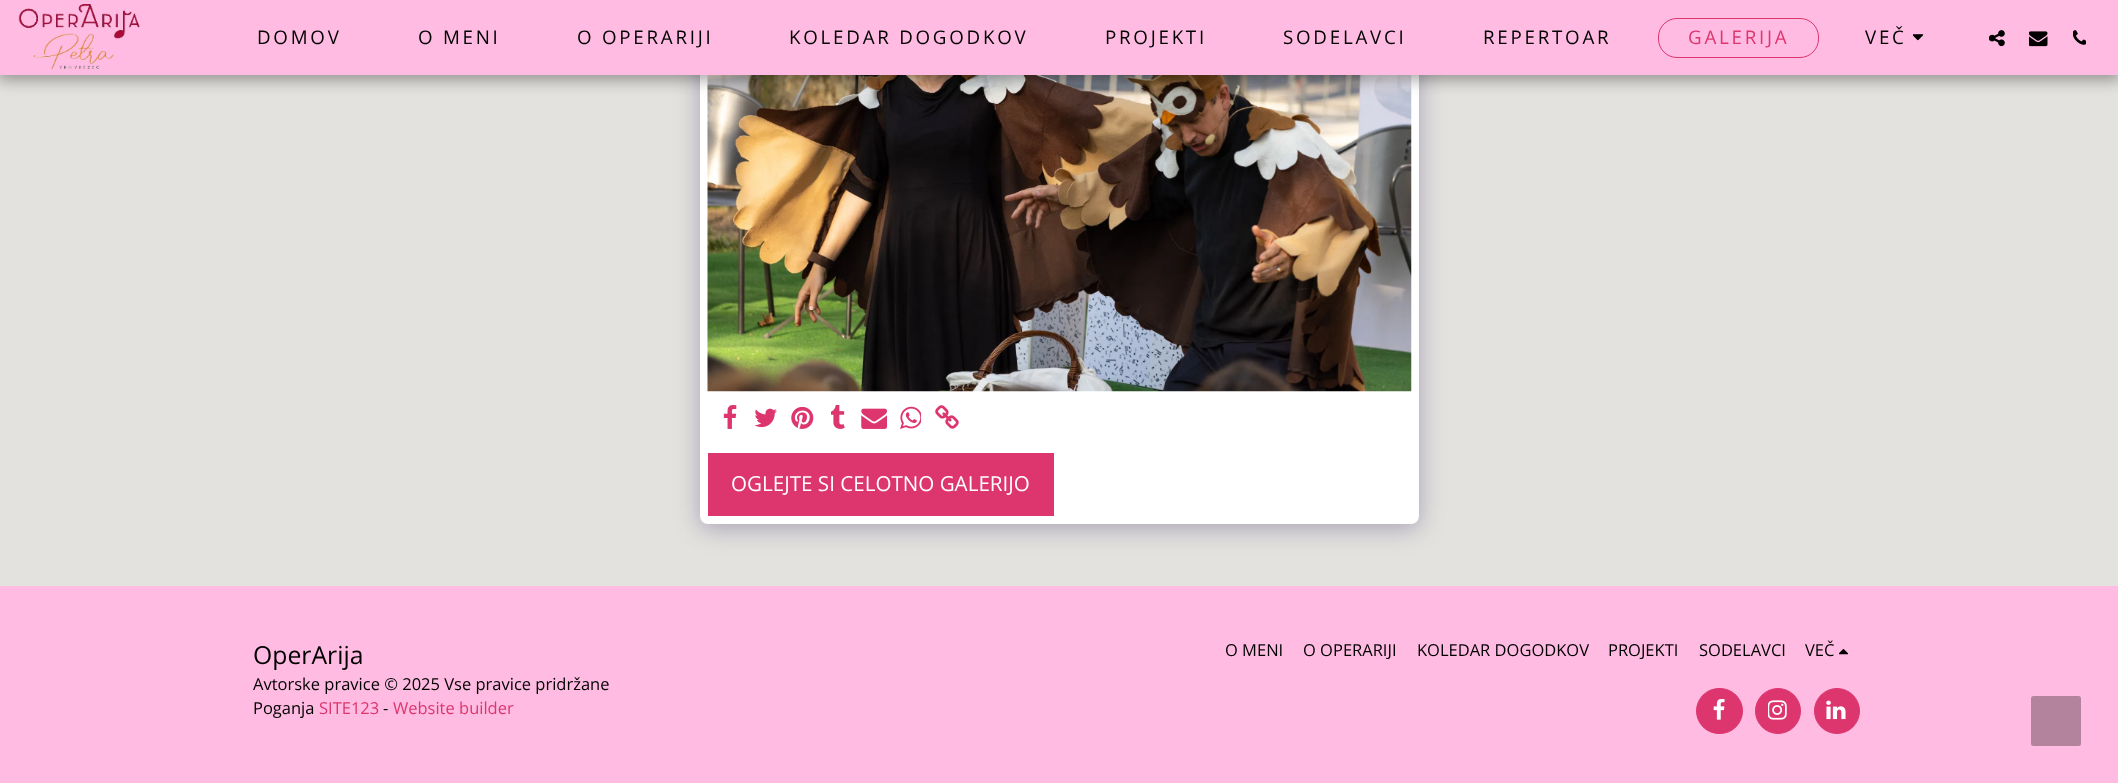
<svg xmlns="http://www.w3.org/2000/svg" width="2118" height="783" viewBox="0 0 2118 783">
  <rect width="100%" height="100%" fill="#e3e2de"/>
  <rect x="700" y="-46" width="719" height="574" rx="8" fill="#4d3f7a66" filter="blur(12.5px)"/>
  <rect x="700" y="-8" width="719" height="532" rx="8" fill="#fff"/>
  <image x="707" y="75" width="705" height="317" href="img/6.png"/>
  <path d="M-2 0h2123v80H-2z" fill="#00000059" filter="blur(7.5px)"/>
  <path d="M0 0h2118v75H0z" fill="#ffbbe1"/>
  <image x="18" y="4" width="122" height="66" href="img/1.png"/>
  <rect x="1658.5" y="18.5" width="160" height="39" rx="18.5" fill="none" stroke="#dd356e"/>
  <image x="1913" y="34" width="11" height="7" href="img/2.png"/>
  <image x="1989" y="30" width="16" height="17" href="img/3.png"/>
  <image x="2029" y="31" width="19" height="16" href="img/4.png"/>
  <image x="2073" y="30" width="13" height="15" href="img/5.png"/>
  <image x="723" y="405" width="14" height="24" href="img/7.png"/>
  <image x="754" y="408" width="23" height="20" href="img/8.png"/>
  <image x="791" y="406" width="23" height="23" href="img/9.png"/>
  <image x="830" y="405" width="15" height="24" href="img/10.png"/>
  <image x="861" y="408" width="27" height="21" href="img/11.png"/>
  <image x="900" y="406" width="21" height="23" href="img/12.png"/>
  <image x="935" y="405" width="24" height="24" href="img/13.png"/>
  <path d="M708 453h346v63H708z" fill="#dd356e"/>
  <path d="M0 586h2118v197H0z" fill="#ffbbe1"/>
  <image x="1839" y="649" width="10" height="6" href="img/14.png"/>
  <rect x="1696.5" y="688.5" width="46" height="45" rx="22.5" fill="#dd356e" stroke="#dd356e"/>
  <image x="1713" y="699" width="12" height="21" href="img/15.png"/>
  <circle cx="1778" cy="711" r="22.5" fill="#dd356e" stroke="#dd356e"/>
  <image x="1768" y="700" width="19" height="20" href="img/16.png"/>
  <circle cx="1837" cy="711" r="22.5" fill="#dd356e" stroke="#dd356e"/>
  <image x="1826" y="700" width="20" height="20" href="img/17.png"/>
  <rect x="2031" y="696" width="50" height="50" rx="2.5" fill="#b3839e"/>
  <g font-family="Open Sans" font-size="18.75" letter-spacing="2.75" fill="#000">
    <text x="257" y="44">DOMOV</text>
    <text x="418" y="44">O MENI</text>
    <text x="577" y="44">O OPERARIJI</text>
    <text x="789" y="44">KOLEDAR DOGODKOV</text>
    <text x="1105" y="44">PROJEKTI</text>
    <text x="1283" y="44">SODELAVCI</text>
    <text x="1483" y="44">REPERTOAR</text>
  </g>
  <text x="1688" y="44" font-family="Open Sans" font-size="18.75" letter-spacing="2.75" fill="#dd356e">GALERIJA</text>
  <text x="1865" y="44" font-family="Open Sans" font-size="18.75" letter-spacing="2.75" fill="#000">VEČ</text>
  <text x="731" y="491" font-family="Open Sans" font-size="20.6" fill="#fff">OGLEJTE SI CELOTNO GALERIJO</text>
  <text x="253" y="664" font-family="Open Sans" font-size="24.75" fill="#000">OperArija</text>
  <g font-family="Open Sans" font-size="16.5" fill="#000">
    <text x="253" y="690">Avtorske pravice © 2025 Vse pravice pridržane</text>
    <text x="253" y="714">Poganja</text>
  </g>
  <text x="319" y="714" font-family="Open Sans" font-size="16.5" fill="#dd356e">SITE123</text>
  <text x="383" y="714" font-family="Open Sans" font-size="16.5" fill="#000">-</text>
  <text x="393" y="714" font-family="Open Sans" font-size="16.5" fill="#dd356e">Website builder</text>
  <g font-family="Open Sans" font-size="16.5" fill="#000">
    <text x="1225" y="656">O MENI</text>
    <text x="1303" y="656">O OPERARIJI</text>
    <text x="1417" y="656">KOLEDAR DOGODKOV</text>
    <text x="1608" y="656">PROJEKTI</text>
    <text x="1699" y="656">SODELAVCI</text>
    <text x="1805" y="656">VEČ</text>
  </g>
</svg>
